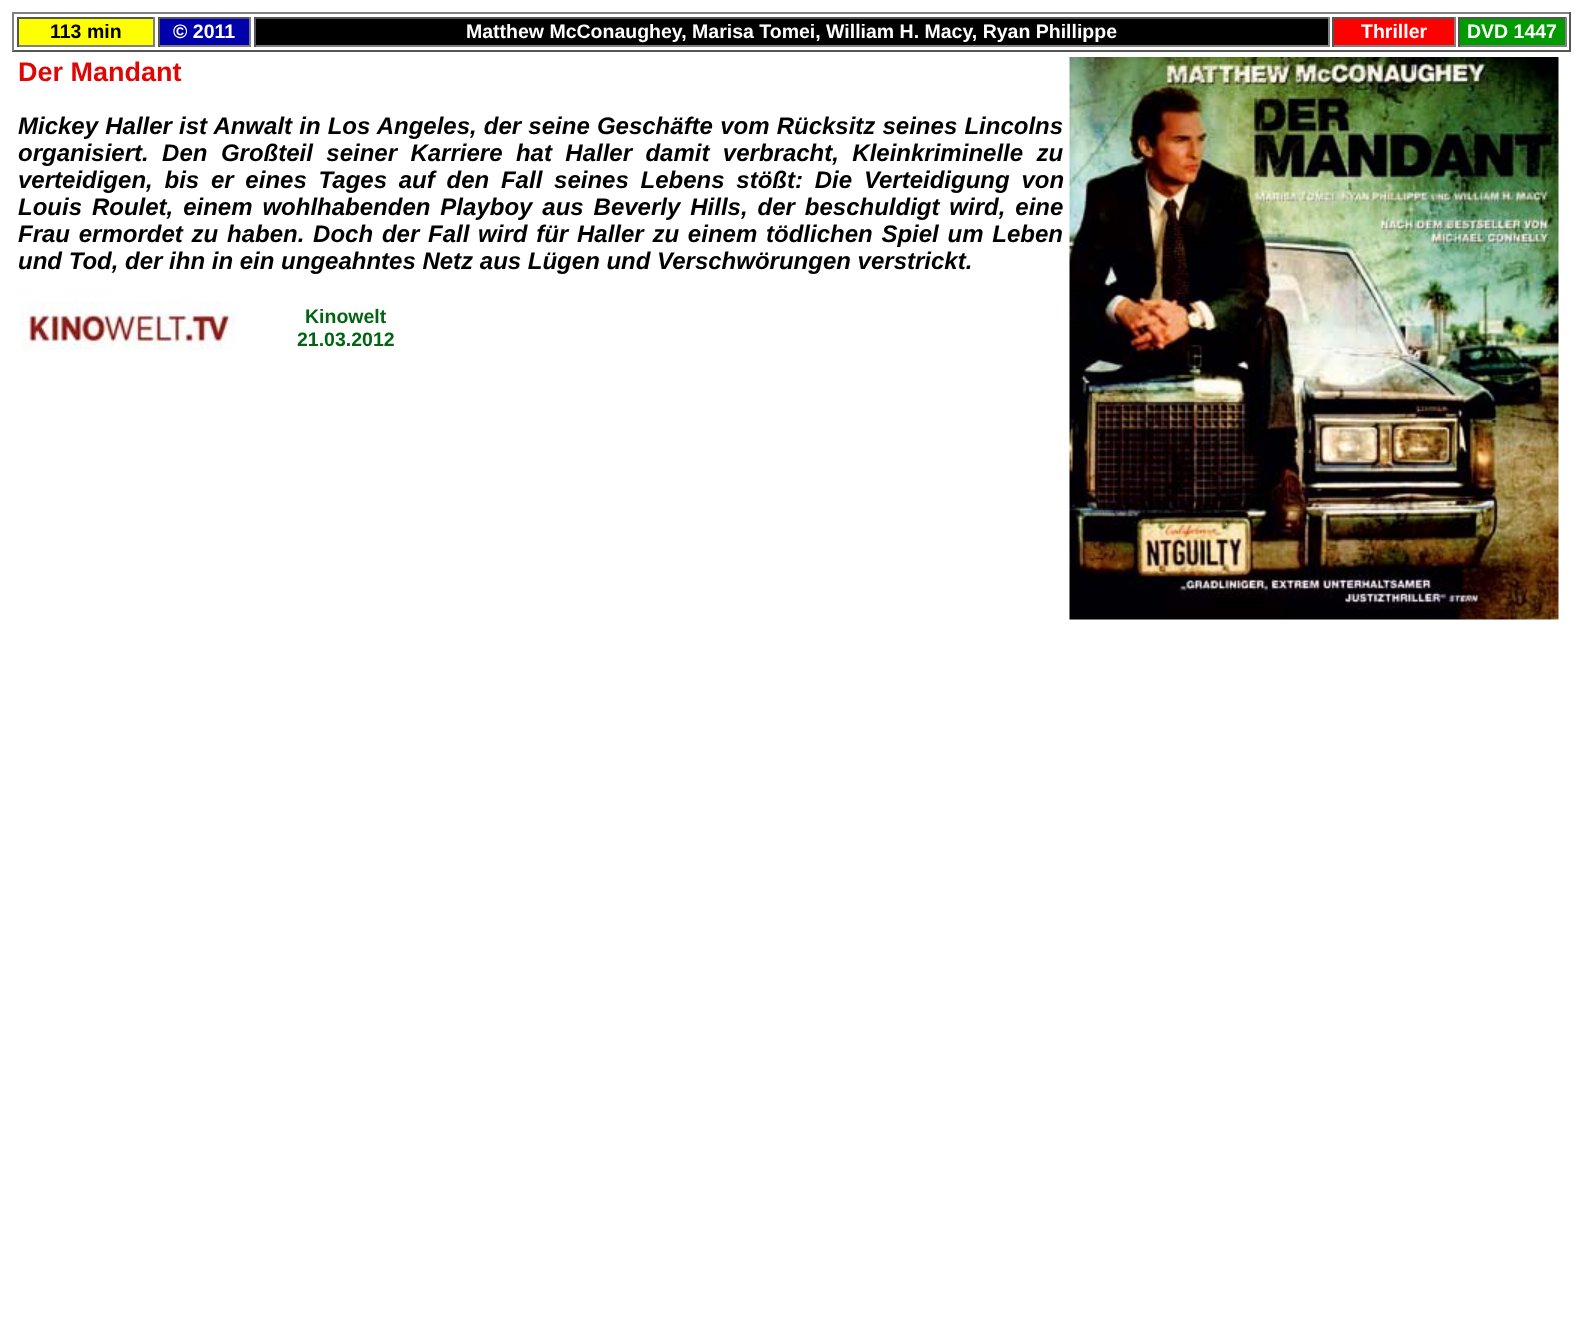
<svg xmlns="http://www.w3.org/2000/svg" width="1582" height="1319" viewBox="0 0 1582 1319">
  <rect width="100%" height="100%" fill="#fff"/>
  <path d="M12 12h1559v2H12z" fill="#808080"/>
  <path d="M1569 12h2v39H1569z" fill="#555"/>
  <path d="M12 50h1559v2H12z" fill="#555"/>
  <path d="M12 12h2v39H12z" fill="#808080"/>
  <path d="M19 19h134v26H19z" fill="#ff0"/>
  <path d="M17 17h138v2H17z" fill="#555"/>
  <path d="M153 17h2v30H153z" fill="#808080"/>
  <path d="M17 45h138v2H17z" fill="#808080"/>
  <path d="M17 17h2v30H17z" fill="#555"/>
  <path d="M160 19h89v26H160z" fill="#0000ad"/>
  <path d="M158 17h93v2H158z" fill="#555"/>
  <path d="M249 17h2v30H249z" fill="#808080"/>
  <path d="M158 45h93v2H158z" fill="#808080"/>
  <path d="M158 17h2v30H158z" fill="#555"/>
  <path d="M256 19h1072v26H256z" fill="#000"/>
  <path d="M254 17h1075v2H254z" fill="#555"/>
  <path d="M1328 17h2v30H1328z" fill="#808080"/>
  <path d="M254 45h1075v2H254z" fill="#808080"/>
  <path d="M254 17h2v30H254z" fill="#555"/>
  <path d="M1334 19h120v26H1334z" fill="#f00"/>
  <path d="M1332 17h123v2H1332z" fill="#555"/>
  <path d="M1454 17h2v30H1454z" fill="#808080"/>
  <path d="M1332 45h123v2H1332z" fill="#808080"/>
  <path d="M1332 17h2v30H1332z" fill="#555"/>
  <path d="M1460 19h105v26H1460z" fill="#009b00"/>
  <path d="M1458 17h108v2H1458z" fill="#555"/>
  <path d="M1565 17h2v30H1565z" fill="#808080"/>
  <path d="M1458 45h108v2H1458z" fill="#808080"/>
  <path d="M1458 17h2v30H1458z" fill="#555"/>
  <image x="1069" y="57" width="490" height="563" href="img/1.png"/>
  <image x="21" y="301" width="215" height="49" href="img/2.png"/>
  <text x="50" y="38" font-family="Liberation Sans" font-size="19.5" font-weight="bold" fill="#000">113 min</text>
  <g font-family="Liberation Sans" font-size="19.5" font-weight="bold" fill="#fff">
    <text x="173" y="38">© 2011</text>
    <text x="466" y="38">Matthew McConaughey, Marisa Tomei, William H. Macy, Ryan Phillippe</text>
    <text x="1361" y="38">Thriller</text>
    <text x="1467" y="38">DVD 1447</text>
  </g>
  <text x="18" y="81" font-family="Liberation Sans" font-size="27" font-weight="bold" fill="#dd0806">Der Mandant</text>
  <g font-family="Liberation Sans" font-size="24" font-weight="bold" font-style="italic" fill="#000">
    <text x="18" y="134" word-spacing="0.5">Mickey Haller ist Anwalt in Los Angeles, der seine Geschäfte vom Rücksitz seines Lincolns</text>
    <text x="18" y="161" word-spacing="6.75">organisiert. Den Großteil seiner Karriere hat Haller damit verbracht, Kleinkriminelle zu</text>
    <text x="18" y="188" word-spacing="5.1">verteidigen, bis er eines Tages auf den Fall seines Lebens stößt: Die Verteidigung von</text>
    <text x="18" y="215" word-spacing="3.25">Louis Roulet, einem wohlhabenden Playboy aus Beverly Hills, der beschuldigt wird, eine</text>
    <text x="18" y="242" word-spacing="2.1">Frau ermordet zu haben. Doch der Fall wird für Haller zu einem tödlichen Spiel um Leben</text>
    <text x="18" y="269">und Tod, der ihn in ein ungeahntes Netz aus Lügen und Verschwörungen verstrickt.</text>
  </g>
  <g font-family="Liberation Sans" font-size="19.5" font-weight="bold" fill="#006411">
    <text x="305" y="323">Kinowelt</text>
    <text x="297" y="346">21.03.2012</text>
  </g>
</svg>
